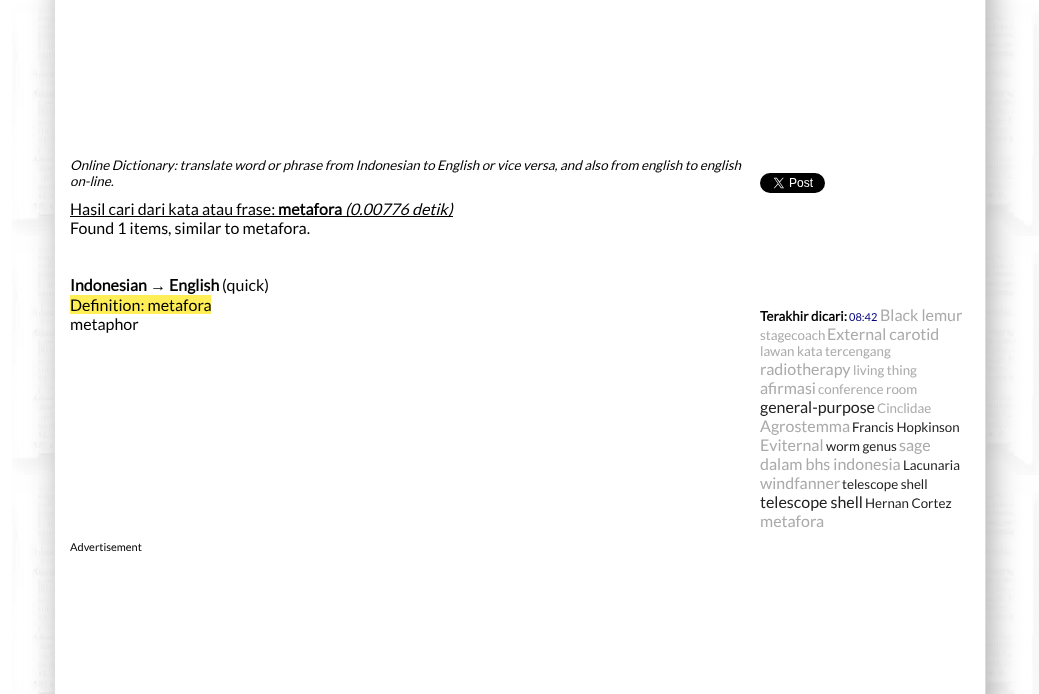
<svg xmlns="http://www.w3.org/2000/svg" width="1039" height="694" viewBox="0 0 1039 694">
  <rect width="100%" height="100%" fill="#fff"/>
  <image x="12" y="5" width="1027" height="689" href="img/1.png"/>
  <rect x="59" y="-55" width="932" height="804" rx="10" fill="#aaa" filter="blur(15px)"/>
  <path d="M55 0h930v694H55z" fill="#fff"/>
  <path d="M54-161H986V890C986 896 982 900 976 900H64C58 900 54 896 54 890ZM55-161H985V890C985 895 981 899 976 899H64C59 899 55 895 55 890Z" fill="#ddd" fill-rule="evenodd"/>
  <path d="M70 216h378v1H70z" fill="#000"/>
  <path d="M448 216h5v1H448z" fill="#000"/>
  <path d="M70 295h141v19H70z" fill="#fe5"/>
  <image x="760" y="173" width="65" height="20" href="img/2.png"/>
  <g font-family="Lato" font-size="13.33" font-style="italic" fill="#000">
    <text x="70" y="170">Online Dictionary: translate word or phrase from Indonesian to English or vice versa, and also from english to english</text>
    <text x="70" y="186">on-line.</text>
  </g>
  <text x="70" y="215" font-family="Lato" font-size="16" fill="#000">Hasil cari dari kata atau frase:</text>
  <text x="278" y="215" font-family="Lato" font-size="16" font-weight="bold" fill="#000">metafora</text>
  <g font-family="Lato" font-size="16" font-style="italic" fill="#000">
    <text x="345" y="215">(0.00776 detik</text>
    <text x="448" y="215">)</text>
  </g>
  <text x="70" y="234" font-family="Lato" font-size="16" fill="#000">Found 1 items, similar to metafora.</text>
  <text x="70" y="291" font-family="Lato" font-size="16" font-weight="bold" fill="#000">Indonesian</text>
  <text x="150" y="291" font-family="Liberation Sans" font-size="16" font-weight="bold" fill="#000">→</text>
  <text x="169" y="291" font-family="Lato" font-size="16" font-weight="bold" fill="#000">English</text>
  <g font-family="Lato" font-size="16" fill="#000">
    <text x="222" y="291">(quick)</text>
    <text x="70" y="311">Definition: metafora</text>
    <text x="70" y="330">metaphor</text>
  </g>
  <text x="70" y="551" font-family="Lato" font-size="11" fill="#000">Advertisement</text>
  <text x="760" y="321" font-family="Lato" font-size="13.33" font-weight="bold" fill="#000">Terakhir dicari:</text>
  <text x="849" y="321" font-family="Lato" font-size="11" fill="#000080">08:42</text>
  <text x="880" y="321" font-family="Lato" font-size="16" fill="#aaa">Black lemur</text>
  <text x="760" y="340" font-family="Lato" font-size="13.33" fill="#aaa">stagecoach</text>
  <text x="827" y="340" font-family="Lato" font-size="16" fill="#aaa">External carotid</text>
  <text x="760" y="356" font-family="Lato" font-size="13.33" fill="#aaa">lawan kata tercengang</text>
  <text x="760" y="375" font-family="Lato" font-size="16" fill="#aaa">radiotherapy</text>
  <text x="853" y="375" font-family="Lato" font-size="13.33" fill="#aaa">living thing</text>
  <text x="760" y="394" font-family="Lato" font-size="16" fill="#aaa">afirmasi</text>
  <text x="818" y="394" font-family="Lato" font-size="13.33" fill="#aaa">conference room</text>
  <text x="760" y="413" font-family="Lato" font-size="16" fill="#222">general-purpose</text>
  <text x="877" y="413" font-family="Lato" font-size="13.33" fill="#aaa">Cinclidae</text>
  <text x="760" y="432" font-family="Lato" font-size="16" fill="#aaa">Agrostemma</text>
  <text x="852" y="432" font-family="Lato" font-size="13.33" fill="#222">Francis Hopkinson</text>
  <text x="760" y="451" font-family="Lato" font-size="16" fill="#aaa">Eviternal</text>
  <text x="826" y="451" font-family="Lato" font-size="13.33" fill="#222">worm genus</text>
  <g font-family="Lato" font-size="16" fill="#aaa">
    <text x="899" y="451">sage</text>
    <text x="760" y="470">dalam bhs indonesia</text>
  </g>
  <text x="903" y="470" font-family="Lato" font-size="13.33" fill="#222">Lacunaria</text>
  <text x="760" y="489" font-family="Lato" font-size="16" fill="#aaa">windfanner</text>
  <text x="842" y="489" font-family="Lato" font-size="13.33" fill="#222">telescope shell</text>
  <text x="760" y="508" font-family="Lato" font-size="16" fill="#222">telescope shell</text>
  <text x="865" y="508" font-family="Lato" font-size="13.33" fill="#222">Hernan Cortez</text>
  <text x="760" y="527" font-family="Lato" font-size="16" fill="#aaa">metafora</text>
</svg>
